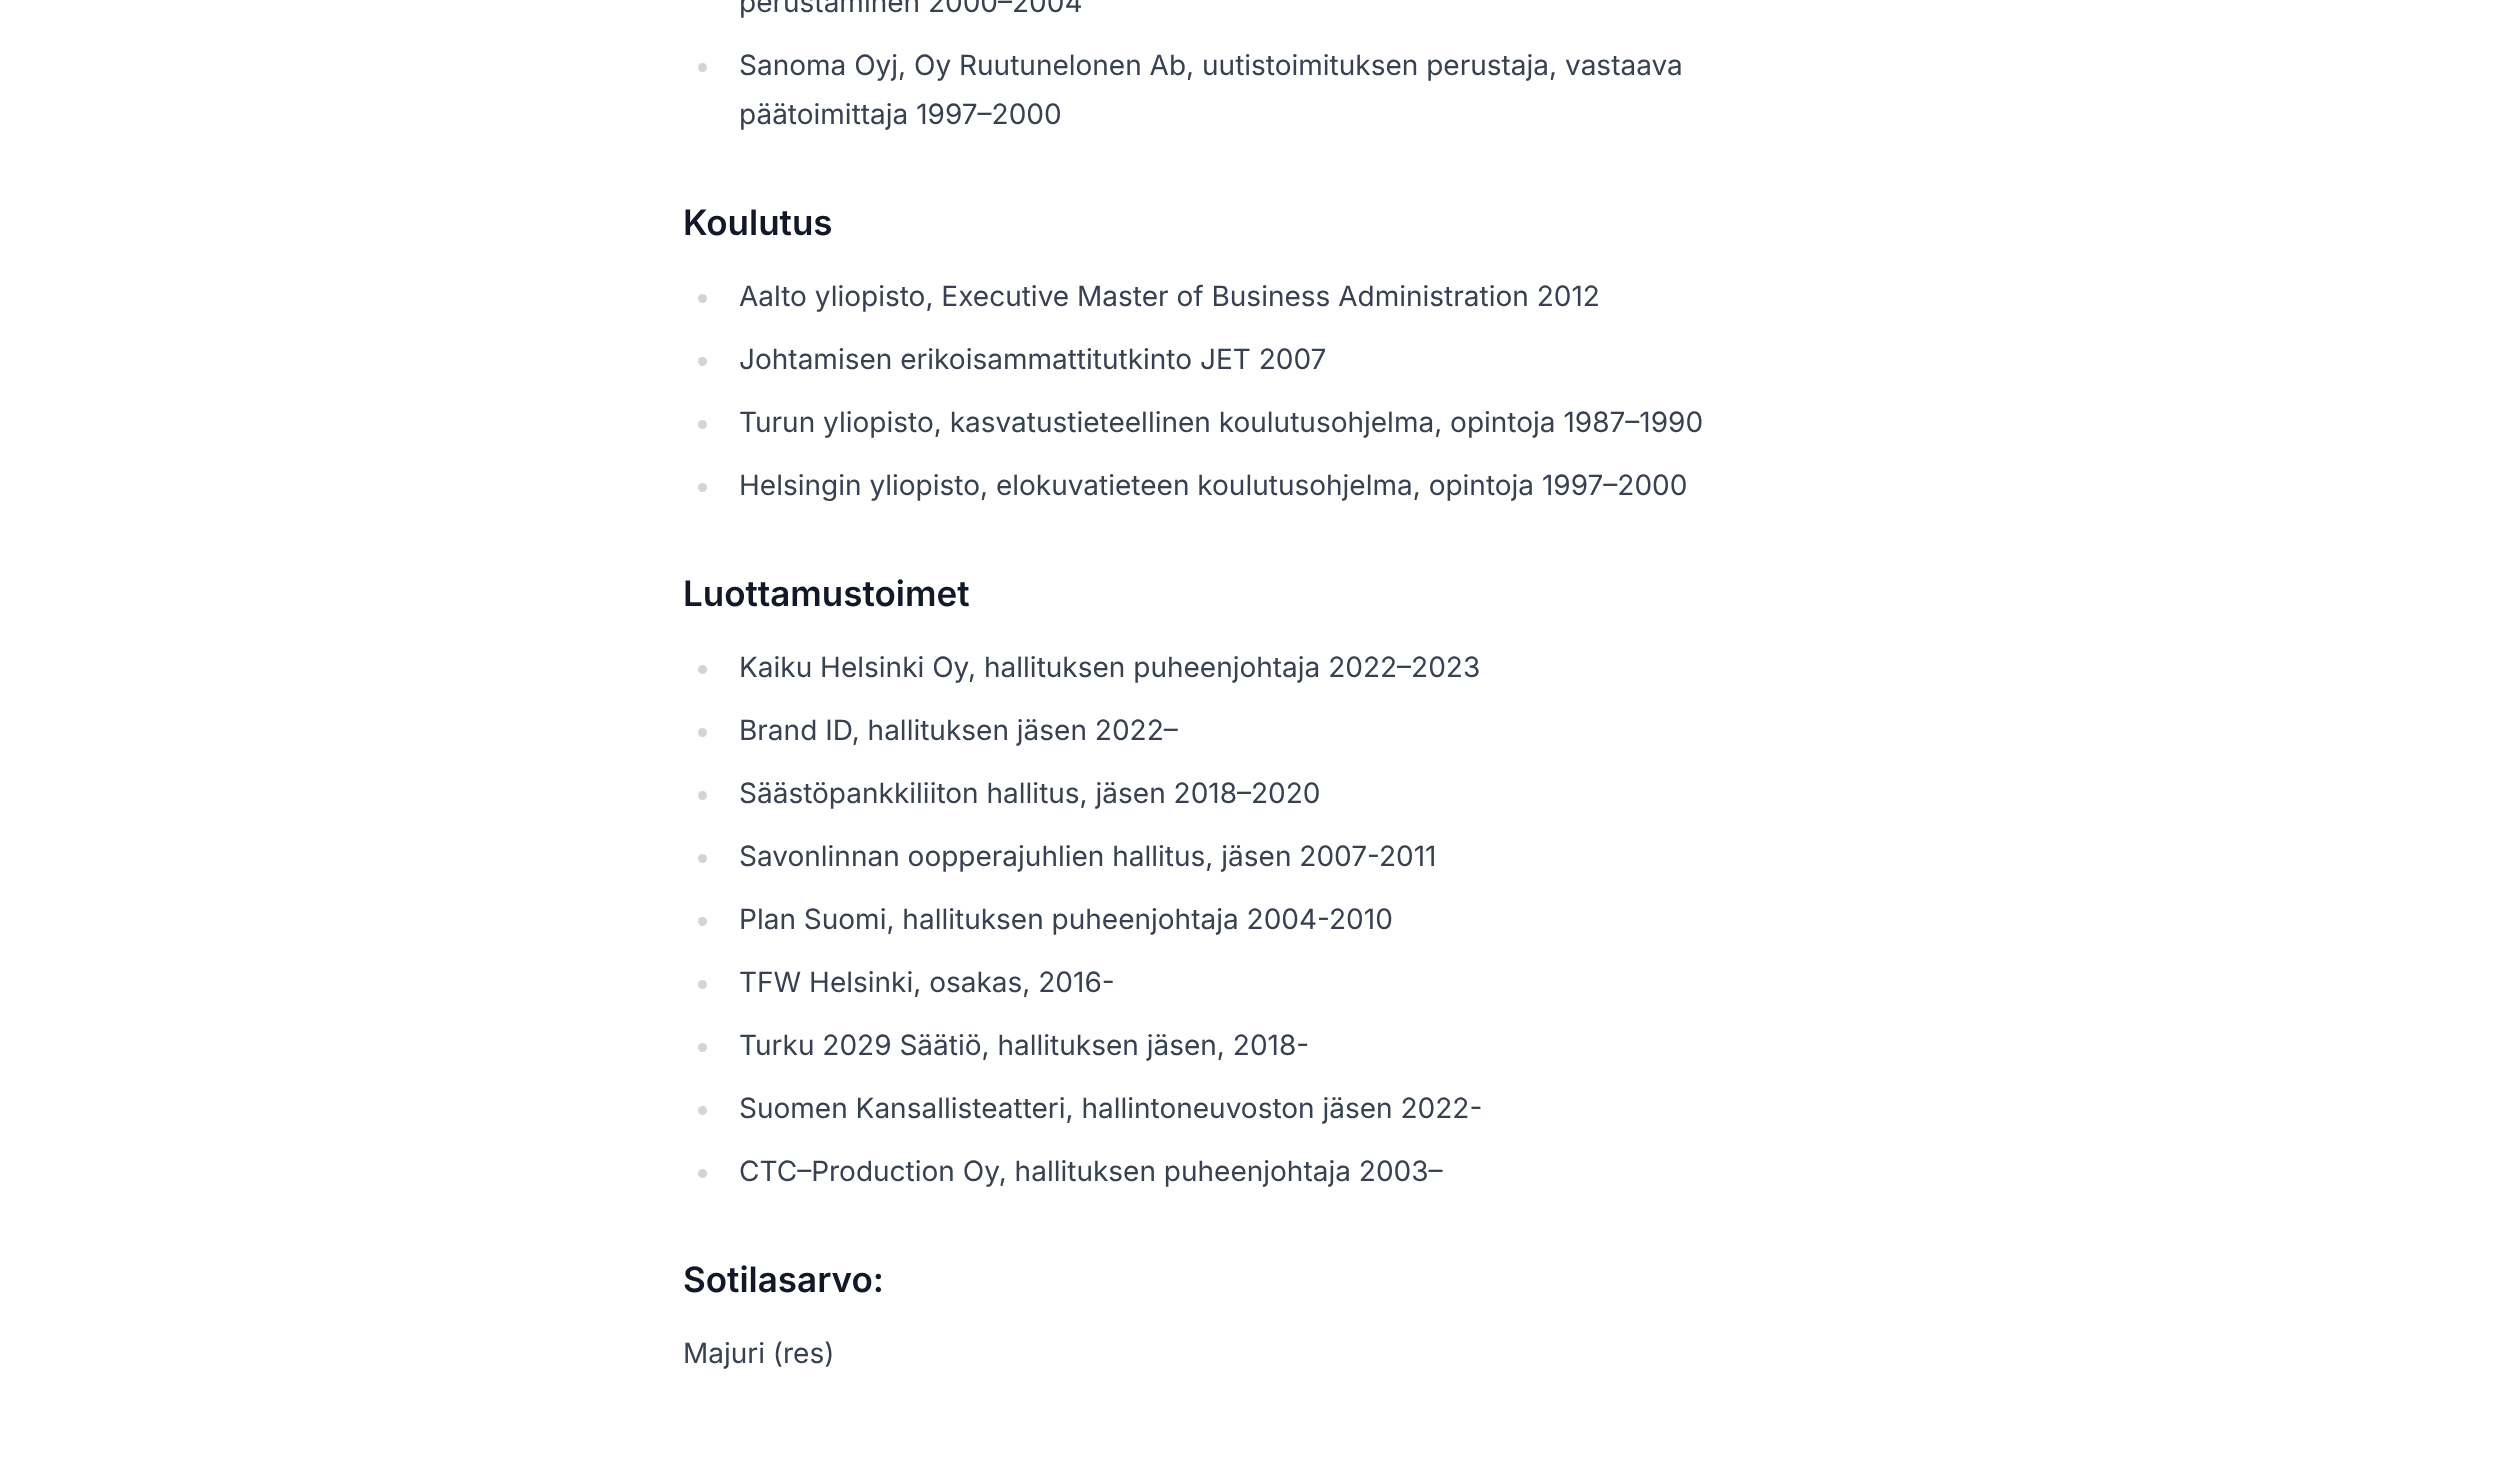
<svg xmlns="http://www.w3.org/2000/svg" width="2514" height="1473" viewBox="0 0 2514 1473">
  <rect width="100%" height="100%" fill="#fff"/>
  <circle cx="702.5" cy="67.5" r="4.5" fill="#d1d5db"/>
  <circle cx="702.5" cy="298.5" r="4.5" fill="#d1d5db"/>
  <circle cx="702.5" cy="361.5" r="4.5" fill="#d1d5db"/>
  <circle cx="702.5" cy="424.5" r="4.5" fill="#d1d5db"/>
  <circle cx="702.5" cy="487.5" r="4.5" fill="#d1d5db"/>
  <circle cx="702.5" cy="669.5" r="4.5" fill="#d1d5db"/>
  <circle cx="702.5" cy="732.5" r="4.5" fill="#d1d5db"/>
  <circle cx="702.5" cy="795.5" r="4.5" fill="#d1d5db"/>
  <circle cx="702.5" cy="858.5" r="4.5" fill="#d1d5db"/>
  <circle cx="702.5" cy="921.5" r="4.5" fill="#d1d5db"/>
  <circle cx="702.5" cy="984.5" r="4.5" fill="#d1d5db"/>
  <circle cx="702.5" cy="1047.5" r="4.5" fill="#d1d5db"/>
  <circle cx="702.5" cy="1110.5" r="4.5" fill="#d1d5db"/>
  <circle cx="702.5" cy="1173.5" r="4.5" fill="#d1d5db"/>
  <g font-family="Inter" font-size="28" fill="#374151">
    <text x="739" y="12">perustaminen 2000–2004</text>
    <text x="739" y="75">Sanoma Oyj, Oy Ruutunelonen Ab, uutistoimituksen perustaja, vastaava</text>
    <text x="739" y="124">päätoimittaja 1997–2000</text>
  </g>
  <text x="683" y="235" font-family="Inter" font-size="35" font-weight="600" fill="#111827">Koulutus</text>
  <g font-family="Inter" font-size="28" fill="#374151">
    <text x="739" y="306">Aalto yliopisto, Executive Master of Business Administration 2012</text>
    <text x="739" y="369">Johtamisen erikoisammattitutkinto JET 2007</text>
    <text x="739" y="432">Turun yliopisto, kasvatustieteellinen koulutusohjelma, opintoja 1987–1990</text>
    <text x="739" y="495">Helsingin yliopisto, elokuvatieteen koulutusohjelma, opintoja 1997–2000</text>
  </g>
  <text x="683" y="606" font-family="Inter" font-size="35" font-weight="600" fill="#111827">Luottamustoimet</text>
  <g font-family="Inter" font-size="28" fill="#374151">
    <text x="739" y="677">Kaiku Helsinki Oy, hallituksen puheenjohtaja 2022–2023</text>
    <text x="739" y="740">Brand ID, hallituksen jäsen 2022–</text>
    <text x="739" y="803">Säästöpankkiliiton hallitus, jäsen 2018–2020</text>
    <text x="739" y="866">Savonlinnan oopperajuhlien hallitus, jäsen 2007-2011</text>
    <text x="739" y="929">Plan Suomi, hallituksen puheenjohtaja 2004-2010</text>
    <text x="739" y="992">TFW Helsinki, osakas, 2016-</text>
    <text x="739" y="1055">Turku 2029 Säätiö, hallituksen jäsen, 2018-</text>
    <text x="739" y="1118">Suomen Kansallisteatteri, hallintoneuvoston jäsen 2022-</text>
    <text x="739" y="1181">CTC–Production Oy, hallituksen puheenjohtaja 2003–</text>
  </g>
  <text x="683" y="1292" font-family="Inter" font-size="35" font-weight="600" fill="#111827">Sotilasarvo:</text>
  <text x="683" y="1363" font-family="Inter" font-size="28" fill="#374151">Majuri (res)</text>
</svg>
